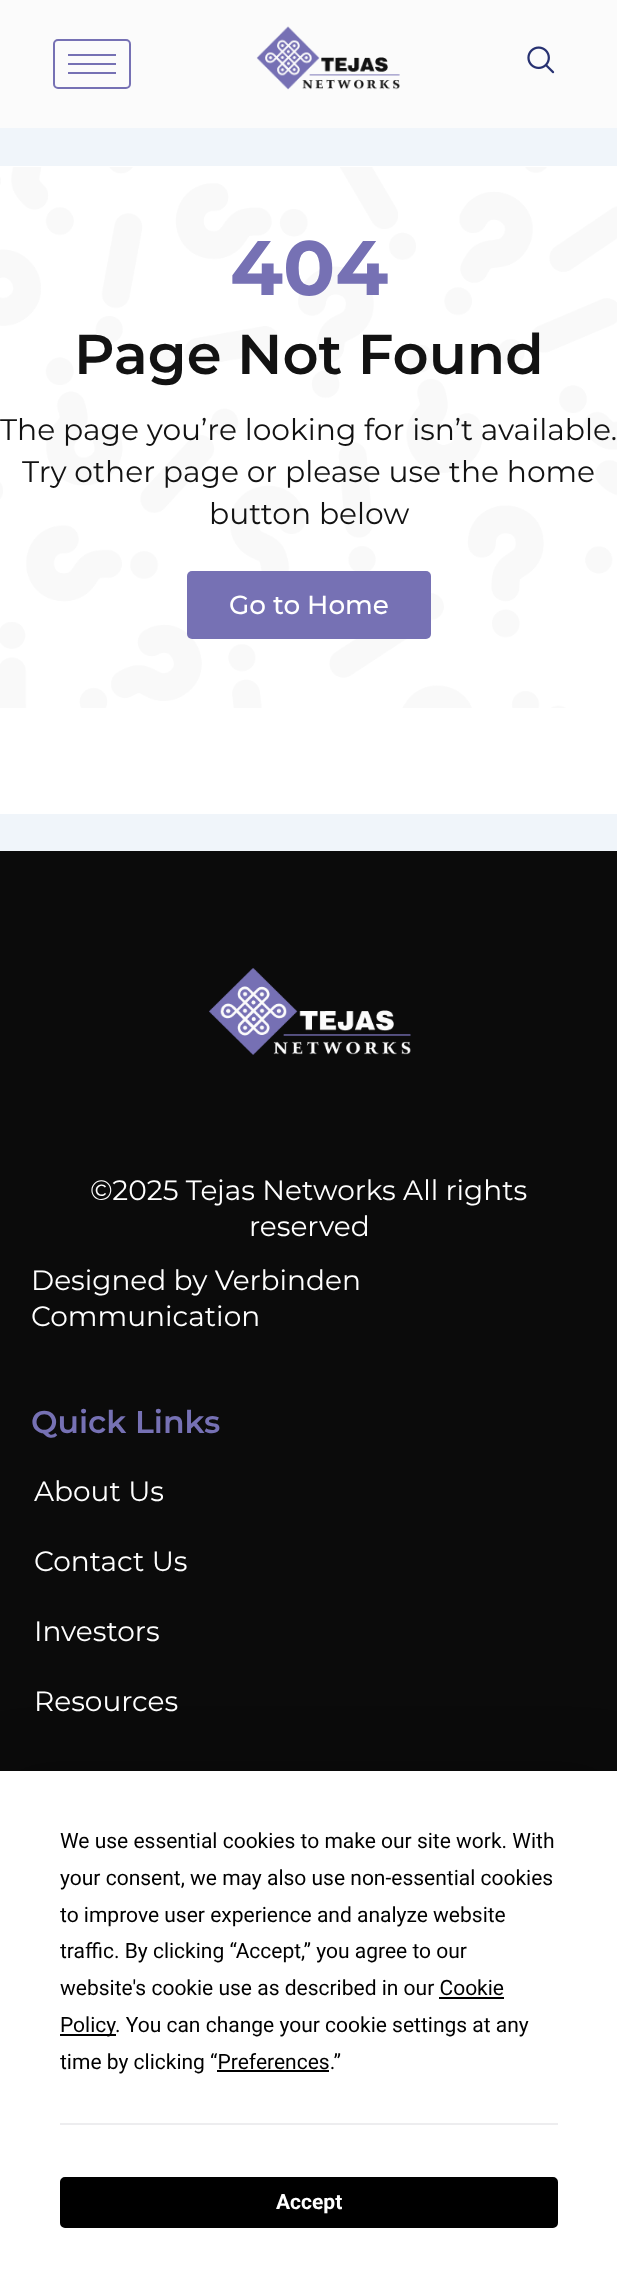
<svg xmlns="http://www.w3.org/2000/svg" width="617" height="2280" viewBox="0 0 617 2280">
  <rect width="100%" height="100%" fill="#f0f5fa"/>
  <path d="M0 0h617v128H0z" fill="#fbfbfb"/>
  <rect x="54" y="40" width="76" height="48" rx="4" fill="none" stroke="#7671b4" stroke-width="2"/>
  <path d="M68 54h48v2H68z" fill="#7671b4"/>
  <path d="M68 63h48v2H68z" fill="#7671b4"/>
  <path d="M68 72h48v2H68z" fill="#7671b4"/>
  <image x="256" y="26" width="144" height="64" href="img/1.png"/>
  <image x="527" y="46" width="28" height="28" href="img/2.png"/>
  <path d="M0 166h617v648H0z" fill="#fff"/>
  <image x="0" y="167" width="617" height="541" href="img/3.png"/>
  <rect x="187" y="571" width="244" height="68" rx="5" fill="#7671b4"/>
  <path d="M0 851h617v920H0z" fill="#0b0b0b"/>
  <image x="209" y="968" width="202" height="87" href="img/4.png"/>
  <path d="M0 1771h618v509H0z" fill="#00000040" filter="blur(30.5px)"/>
  <path d="M0 1771h617v509H0z" fill="#fff"/>
  <path d="M439 1997h65v2H439z" fill="#000"/>
  <path d="M60 2034h56v2H60z" fill="#000"/>
  <path d="M217 2070h112v2H217z" fill="#000"/>
  <path d="M60 2123h498v2H60z" fill="#ededef"/>
  <rect x="61" y="2178" width="496" height="49" rx="4" fill="#000" stroke="#000" stroke-width="2"/>
  <text x="230" y="295" font-family="Montserrat" font-size="77" font-weight="bold" fill="#7671b4">404</text>
  <text x="74" y="374" font-family="Montserrat" font-size="56" font-weight="600" fill="#121212">Page Not Found</text>
  <g font-family="Montserrat" font-size="29.75" fill="#121212">
    <text x="0" y="440">The page you’re looking for isn’t available.</text>
    <text x="22" y="482">Try other page or please use the home</text>
    <text x="209" y="524">button below</text>
  </g>
  <text x="229" y="614" font-family="Montserrat" font-size="26.25" font-weight="500" fill="#fff">Go to Home</text>
  <g font-family="Montserrat" font-size="28" fill="#fff">
    <text x="90" y="1200">©2025 Tejas Networks All rights</text>
    <text x="249" y="1236">reserved</text>
    <text x="31" y="1290">Designed by Verbinden</text>
    <text x="31" y="1326">Communication</text>
  </g>
  <text x="31" y="1433" font-family="Montserrat" font-size="31.5" font-weight="600" fill="#7671b4">Quick Links</text>
  <g font-family="Montserrat" font-size="28" fill="#fff">
    <text x="34" y="1501">About Us</text>
    <text x="34" y="1571">Contact Us</text>
    <text x="34" y="1641">Investors</text>
    <text x="34" y="1711">Resources</text>
  </g>
  <g font-family="Roboto" font-size="21" fill="#000">
    <text x="60" y="1848">We use essential cookies to make our site work. With</text>
    <text x="60" y="1885">your consent, we may also use non-essential cookies</text>
    <text x="60" y="1922">to improve user experience and analyze website</text>
    <text x="60" y="1958">traffic. By clicking “Accept,” you agree to our</text>
    <text x="60" y="1995">website's cookie use as described in our Cookie</text>
    <text x="60" y="2032">Policy</text>
    <text x="115" y="2032">. You can change your cookie settings at any</text>
    <text x="60" y="2069">time by clicking “Preferences.”</text>
  </g>
  <text x="276" y="2209" font-family="Roboto" font-size="21" font-weight="bold" fill="#fff">Accept</text>
</svg>
